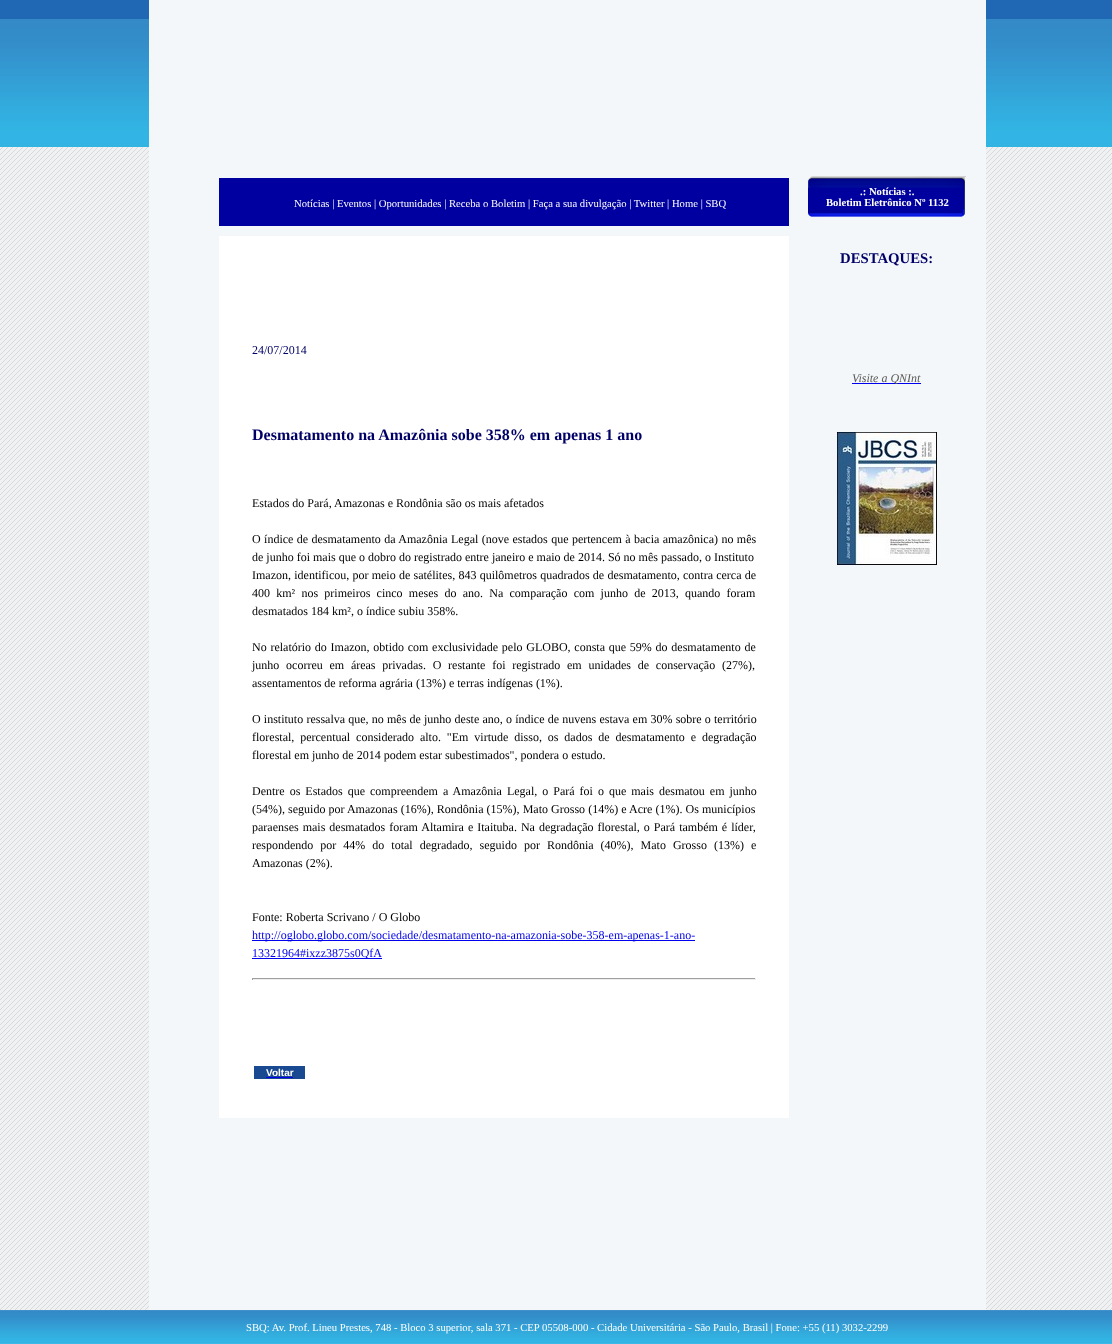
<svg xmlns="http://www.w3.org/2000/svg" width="1112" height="1344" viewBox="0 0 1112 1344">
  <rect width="100%" height="100%" fill="#fff"/>
  <image x="0" y="147" width="1112" height="1163" href="img/1.png"/>
  <image x="0" y="0" width="1112" height="147" href="img/2.png"/>
  <image x="0" y="1310" width="1112" height="34" href="img/3.png"/>
  <path d="M149 0h837v1310H149z" fill="#f4f7fa"/>
  <path d="M219 178h570v48H219z" fill="#0000a0"/>
  <path d="M219 236h570v882H219z" fill="#fff"/>
  <path d="M252 940h443v1H252z" fill="#00e"/>
  <path d="M252 958h130v1H252z" fill="#00e"/>
  <path d="M252 978h504v1H252z" fill="#9f9f9f"/>
  <path d="M755 978h1v2H755z" fill="#eee"/>
  <path d="M252 979h504v1H252z" fill="#eee"/>
  <path d="M252 978h1v2H252z" fill="#9f9f9f"/>
  <path d="M254 1066h51v13H254z" fill="#194991"/>
  <path d="M266 1077h27v1H266z" fill="#00e"/>
  <image x="808" y="176" width="158" height="41" href="img/4.png"/>
  <path d="M852 383h69v1H852z" fill="#00e"/>
  <image x="837" y="432" width="100" height="133" href="img/5.png"/>
  <text x="294" y="207" font-family="Liberation Serif" font-size="10.67" fill="#fff">Notícias | Eventos | Oportunidades | Receba o Boletim | Faça a sua divulgação | Twitter | Home | SBQ</text>
  <text x="252" y="354" font-family="Liberation Serif" font-size="12" fill="#006">24/07/2014</text>
  <text x="252" y="440" font-family="Liberation Serif" font-size="16" font-weight="bold" fill="#006">Desmatamento na Amazônia sobe 358% em apenas 1 ano</text>
  <g font-family="Liberation Serif" font-size="12" fill="#000">
    <text x="252" y="507">Estados do Pará, Amazonas e Rondônia são os mais afetados</text>
    <text x="252" y="543" word-spacing="0.4">O índice de desmatamento da Amazônia Legal (nove estados que pertencem à bacia amazônica) no mês</text>
    <text x="252" y="561">de junho foi mais que o dobro do registrado entre janeiro e maio de 2014. Só no mês passado, o Instituto</text>
    <text x="252" y="579" word-spacing="0.25">Imazon, identificou, por meio de satélites, 843 quilômetros quadrados de desmatamento, contra cerca de</text>
    <text x="252" y="597" word-spacing="3.25">400 km² nos primeiros cinco meses do ano. Na comparação com junho de 2013, quando foram</text>
    <text x="252" y="615">desmatados 184 km², o índice subiu 358%.</text>
    <text x="252" y="651" word-spacing="0.75">No relatório do Imazon, obtido com exclusividade pelo GLOBO, consta que 59% do desmatamento de</text>
    <text x="252" y="669" word-spacing="3.75">junho ocorreu em áreas privadas. O restante foi registrado em unidades de conservação (27%),</text>
    <text x="252" y="687">assentamentos de reforma agrária (13%) e terras indígenas (1%).</text>
    <text x="252" y="723" word-spacing="0.2">O instituto ressalva que, no mês de junho deste ano, o índice de nuvens estava em 30% sobre o território</text>
    <text x="252" y="741" word-spacing="2.9">florestal, percentual considerado alto. "Em virtude disso, os dados de desmatamento e degradação</text>
    <text x="252" y="759">florestal em junho de 2014 podem estar subestimados", pondera o estudo.</text>
    <text x="252" y="795" word-spacing="2">Dentre os Estados que compreendem a Amazônia Legal, o Pará foi o que mais desmatou em junho</text>
    <text x="252" y="813" word-spacing="0.1">(54%), seguido por Amazonas (16%), Rondônia (15%), Mato Grosso (14%) e Acre (1%). Os municípios</text>
    <text x="252" y="831" word-spacing="1">paraenses mais desmatados foram Altamira e Itaituba. Na degradação florestal, o Pará também é líder,</text>
    <text x="252" y="849" word-spacing="4">respondendo por 44% do total degradado, seguido por Rondônia (40%), Mato Grosso (13%) e</text>
    <text x="252" y="867">Amazonas (2%).</text>
    <text x="252" y="921">Fonte: Roberta Scrivano / O Globo</text>
  </g>
  <g font-family="Liberation Serif" font-size="12" fill="#00e">
    <text x="252" y="939">http://oglobo.globo.com/sociedade/desmatamento-na-amazonia-sobe-358-em-apenas-1-ano-</text>
    <text x="252" y="957">13321964#ixzz3875s0QfA</text>
  </g>
  <text x="266" y="1076" font-family="Liberation Sans" font-size="10" font-weight="bold" fill="#fff">Voltar</text>
  <g font-family="Liberation Serif" font-size="10.67" font-weight="bold" fill="#fff">
    <text x="860" y="195">.: Notícias :.</text>
    <text x="826" y="206">Boletim Eletrônico Nº 1132</text>
  </g>
  <text x="840" y="263" font-family="Liberation Serif" font-size="14.75" font-weight="bold" fill="#006">DESTAQUES:</text>
  <text x="852" y="382" font-family="Liberation Serif" font-size="12" font-style="italic" fill="#595959">Visite a QNInt</text>
  <text x="246" y="1331" font-family="Liberation Serif" font-size="10.67" fill="#fff">SBQ: Av. Prof. Lineu Prestes, 748 - Bloco 3 superior, sala 371 - CEP 05508-000 - Cidade Universitária - São Paulo, Brasil | Fone: +55 (11) 3032-2299</text>
</svg>
